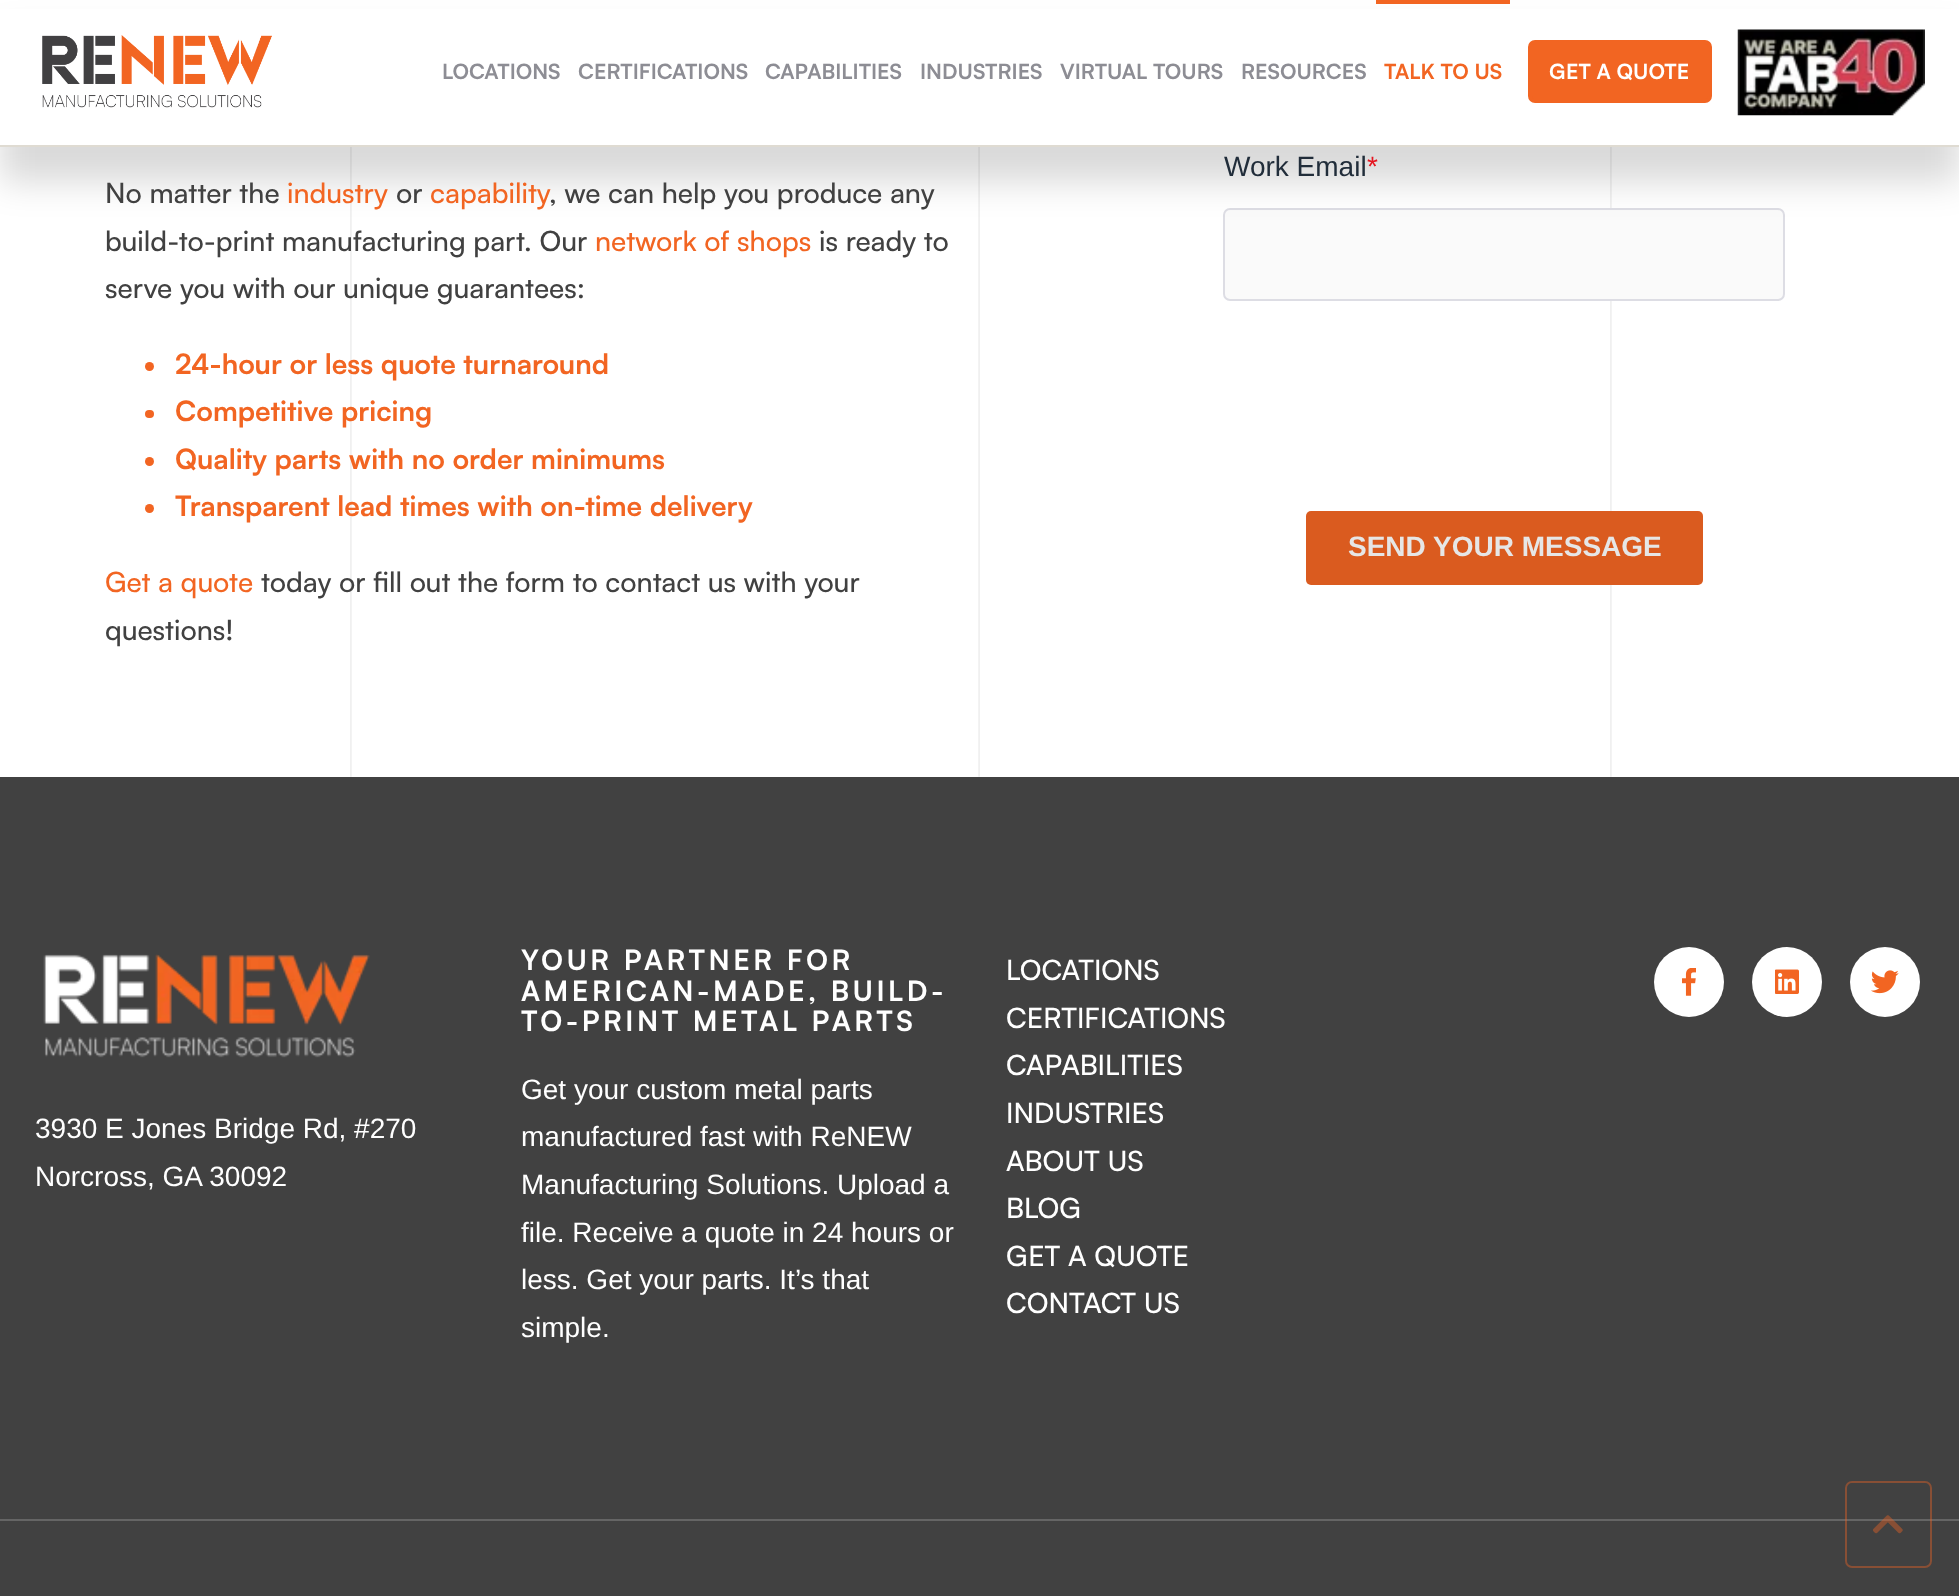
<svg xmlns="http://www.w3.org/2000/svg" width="1959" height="1596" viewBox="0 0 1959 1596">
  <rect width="100%" height="100%" fill="#fff"/>
  <image x="350" y="147" width="1262" height="630" href="img/3.png"/>
  <rect x="1224" y="209" width="560" height="91" rx="6" fill="#fafafa" stroke="#dddde4" stroke-width="2"/>
  <path d="M0 35h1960v147H0z" fill="#00000026" filter="blur(17.5px)"/>
  <path d="M0 9h1959v136H0z" fill="#fff"/>
  <path d="M0 145h1959v2H0z" fill="#dfdbd2"/>
  <image x="42" y="35" width="230" height="73" href="img/1.png"/>
  <path d="M1376 0h134v4H1376z" fill="#f26522"/>
  <rect x="1530" y="42" width="180" height="59" rx="5" fill="#f26522" stroke="#f26522" stroke-width="4"/>
  <image x="1737" y="29" width="188" height="87" href="img/2.png"/>
  <circle cx="149.5" cy="366.5" r="4.5" fill="#f26522"/>
  <rect x="145" y="410" width="9" height="8" rx="4" fill="#f26522"/>
  <circle cx="149.5" cy="461.5" r="4.5" fill="#f26522"/>
  <circle cx="149.5" cy="508.5" r="4.5" fill="#f26522"/>
  <rect x="1306" y="511" width="397" height="74" rx="5" fill="#da5b1f"/>
  <path d="M0 777h1959v819H0z" fill="#414141"/>
  <image x="43" y="954" width="327" height="104" href="img/4.png"/>
  <circle cx="1689" cy="982" r="35" fill="#fff"/>
  <image x="1682" y="968" width="14" height="28" href="img/5.png"/>
  <circle cx="1787" cy="982" r="35" fill="#fff"/>
  <image x="1775" y="969" width="24" height="25" href="img/6.png"/>
  <circle cx="1885" cy="982" r="35" fill="#fff"/>
  <image x="1871" y="970" width="28" height="24" href="img/7.png"/>
  <path d="M0 1519h1959v2H0z" fill="#656565"/>
  <rect x="1846" y="1482" width="85" height="85" rx="6" fill="none" stroke="#f2652266" stroke-width="2"/>
  <image x="1873" y="1515" width="30" height="19" href="img/8.png"/>
  <g font-family="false" font-size="21" font-weight="bold" fill="#8d8d94">
    <text x="442" y="79">LOCATIONS</text>
    <text x="578" y="79">CERTIFICATIONS</text>
    <text x="765" y="79">CAPABILITIES</text>
    <text x="920" y="79">INDUSTRIES</text>
    <text x="1060" y="79">VIRTUAL TOURS</text>
    <text x="1241" y="79">RESOURCES</text>
  </g>
  <text x="1384" y="79" font-family="false" font-size="21" font-weight="bold" fill="#f26522">TALK TO US</text>
  <text x="1549" y="79" font-family="false" font-size="21" font-weight="bold" fill="#fff">GET A QUOTE</text>
  <text x="105" y="203" font-family="Satoshi" font-size="28" font-weight="500" fill="#414141">No matter the</text>
  <text x="287" y="203" font-family="Satoshi" font-size="28" font-weight="500" fill="#f26522">industry</text>
  <text x="396" y="203" font-family="Satoshi" font-size="28" font-weight="500" fill="#414141">or</text>
  <text x="430" y="203" font-family="Satoshi" font-size="28" font-weight="500" fill="#f26522">capability</text>
  <g font-family="Satoshi" font-size="28" font-weight="500" fill="#414141">
    <text x="549" y="203">, we can help you produce any</text>
    <text x="105" y="251">build-to-print manufacturing part. Our</text>
  </g>
  <text x="595" y="251" font-family="Satoshi" font-size="28" font-weight="500" fill="#f26522">network of shops</text>
  <g font-family="Satoshi" font-size="28" font-weight="500" fill="#414141">
    <text x="819" y="251">is ready to</text>
    <text x="105" y="298">serve you with our unique guarantees:</text>
  </g>
  <g font-family="false" font-size="28" font-weight="bold" fill="#f26522">
    <text x="175" y="374">24-hour or less quote turnaround</text>
    <text x="175" y="421">Competitive pricing</text>
    <text x="175" y="469">Quality parts with no order minimums</text>
    <text x="175" y="516">Transparent lead times with on-time delivery</text>
  </g>
  <text x="105" y="592" font-family="Satoshi" font-size="28" font-weight="500" fill="#f26522">Get a quote</text>
  <g font-family="Satoshi" font-size="28" font-weight="500" fill="#414141">
    <text x="261" y="592">today or fill out the form to contact us with your</text>
    <text x="105" y="640">questions!</text>
  </g>
  <text x="1224" y="176" font-family="Liberation Sans" font-size="28" fill="#212d3a">Work Email</text>
  <text x="1367" y="176" font-family="Liberation Sans" font-size="28" fill="#e51520">*</text>
  <text x="1348" y="556" font-family="Liberation Sans" font-size="28" font-weight="bold" fill="#e6e6e6">SEND YOUR MESSAGE</text>
  <g font-family="Liberation Sans" font-size="28" fill="#fff">
    <text x="35" y="1138">3930 E Jones Bridge Rd, #270</text>
    <text x="35" y="1186">Norcross, GA 30092</text>
  </g>
  <g font-family="false" font-size="28" font-weight="bold" letter-spacing="3.5" fill="#fff">
    <text x="521" y="970">YOUR PARTNER FOR</text>
    <text x="521" y="1001">AMERICAN-MADE, BUILD-</text>
    <text x="521" y="1031">TO-PRINT METAL PARTS</text>
  </g>
  <g font-family="Liberation Sans" font-size="28" fill="#fff">
    <text x="521" y="1099">Get your custom metal parts</text>
    <text x="521" y="1146">manufactured fast with ReNEW</text>
    <text x="521" y="1194">Manufacturing Solutions. Upload a</text>
    <text x="521" y="1242">file. Receive a quote in 24 hours or</text>
    <text x="521" y="1289">less. Get your parts. It’s that</text>
    <text x="521" y="1337">simple.</text>
  </g>
  <g font-family="Satoshi" font-size="28" font-weight="500" fill="#fff">
    <text x="1006" y="980">LOCATIONS</text>
    <text x="1006" y="1028">CERTIFICATIONS</text>
    <text x="1006" y="1075">CAPABILITIES</text>
    <text x="1006" y="1123">INDUSTRIES</text>
    <text x="1006" y="1171">ABOUT US</text>
    <text x="1006" y="1218">BLOG</text>
    <text x="1006" y="1266">GET A QUOTE</text>
    <text x="1006" y="1313">CONTACT US</text>
  </g>
</svg>
